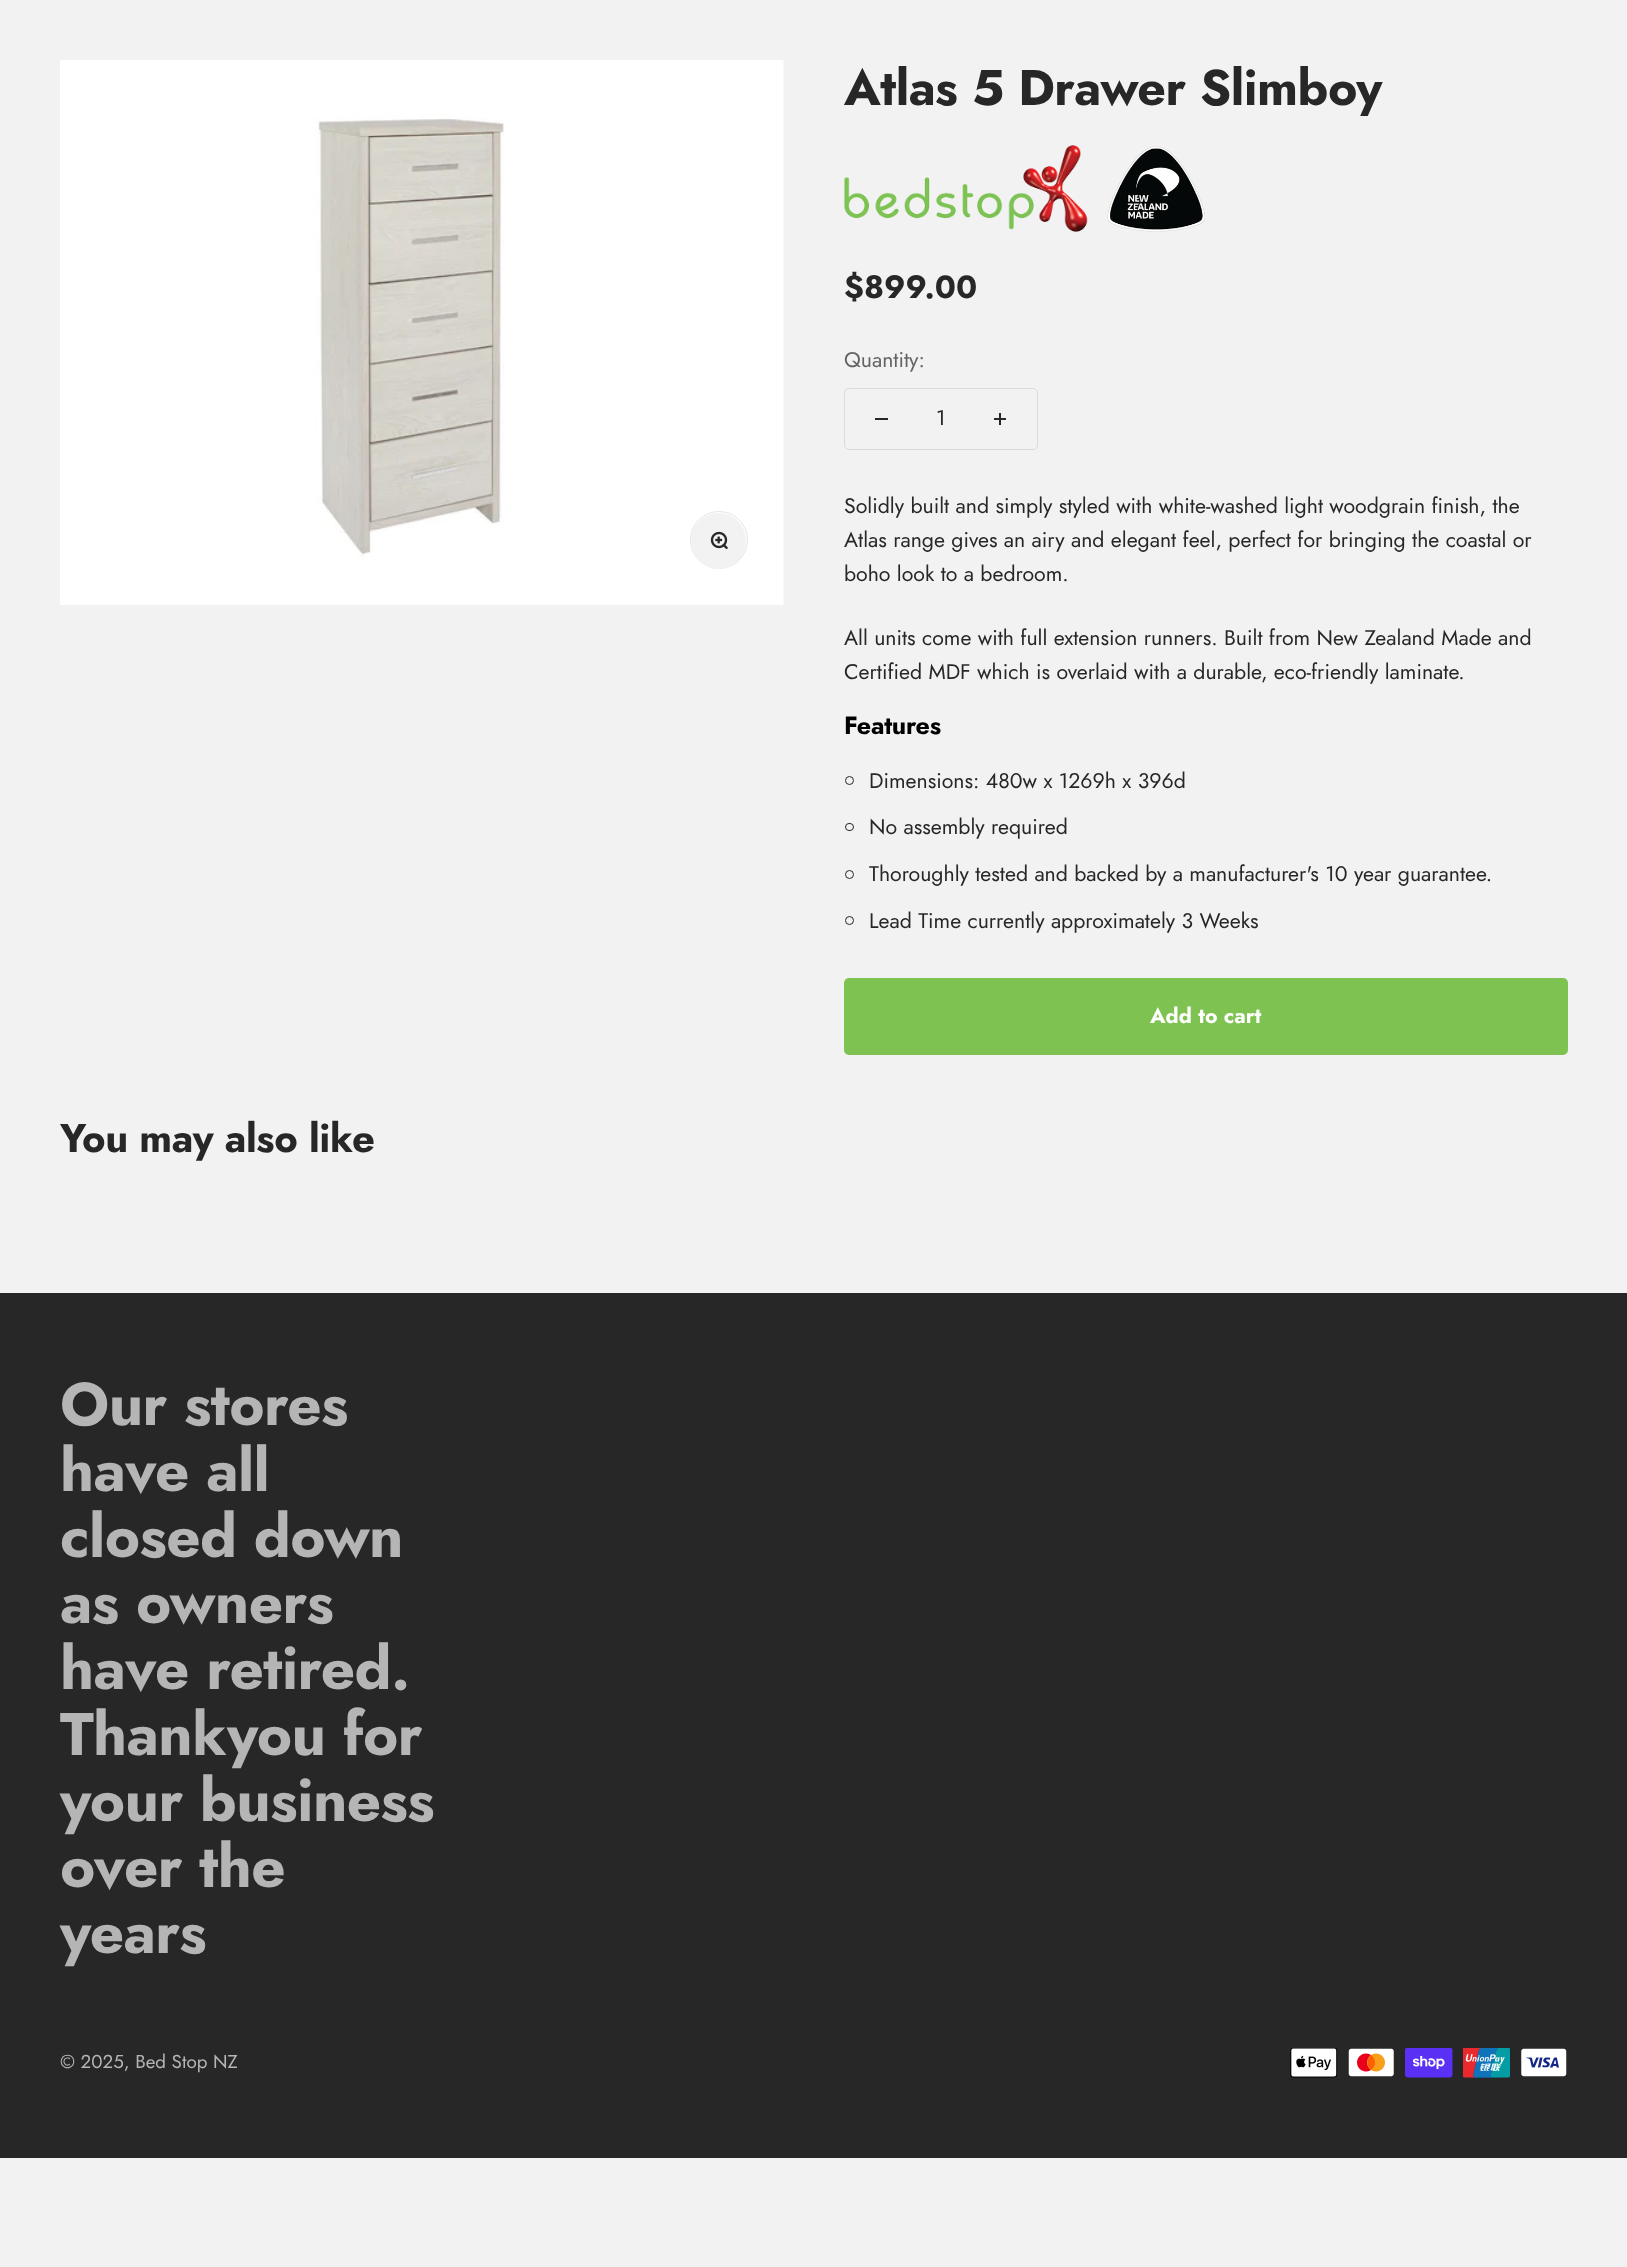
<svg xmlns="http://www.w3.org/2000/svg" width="1627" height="2267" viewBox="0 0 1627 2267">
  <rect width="100%" height="100%" fill="#f2f2f2"/>
  <image x="60" y="60" width="724" height="545" href="img/1.png"/>
  <circle cx="719" cy="540" r="28.5" fill="none" stroke="#e5e5e5"/>
  <rect x="691" y="513" width="55" height="56" rx="27.5" fill="#f2f2f2"/>
  <image x="710" y="531" width="18" height="18" href="img/2.png"/>
  <image x="843" y="145" width="245" height="87" href="img/3.png"/>
  <image x="1107" y="146" width="98" height="86" href="img/4.png"/>
  <rect x="844.5" y="388.5" width="193" height="61" rx="4.5" fill="none" stroke="#dadada"/>
  <path d="M875 418h13v2H875z" fill="#272727"/>
  <path d="M999 413h2v12H999z" fill="#272727"/>
  <path d="M994 418h12v2H994z" fill="#272727"/>
  <circle cx="849.5" cy="780.5" r="4" fill="none" stroke="#272727"/>
  <rect x="845.5" y="823.5" width="8" height="7" rx="3.5" fill="none" stroke="#272727"/>
  <circle cx="849.5" cy="874.5" r="4" fill="none" stroke="#272727"/>
  <circle cx="849.5" cy="920.5" r="4" fill="none" stroke="#272727"/>
  <rect x="844" y="978" width="724" height="77" rx="5" fill="#7ec351"/>
  <path d="M0 1293h1627v865H0z" fill="#272727"/>
  <image x="1290" y="2048" width="48" height="30" href="img/5.png"/>
  <image x="1348" y="2048" width="46" height="29" href="img/6.png"/>
  <image x="1405" y="2048" width="48" height="30" href="img/7.png"/>
  <image x="1463" y="2048" width="47" height="30" href="img/8.png"/>
  <image x="1521" y="2048" width="46" height="29" href="img/9.png"/>
  <text x="844" y="105" font-family="Jost" font-size="50" font-weight="bold" letter-spacing="-0.5" fill="#272727">Atlas 5 Drawer Slimboy</text>
  <text x="844" y="298" font-family="Jost" font-size="32" font-weight="bold" fill="#272727">$899.00</text>
  <text x="844" y="367" font-family="Jost" font-size="21.25" fill="#646464">Quantity:</text>
  <g font-family="Jost" font-size="21.25" fill="#272727">
    <text x="936" y="425">1</text>
    <text x="844" y="513">Solidly built and simply styled with white-washed light woodgrain finish, the</text>
    <text x="844" y="547">Atlas range gives an airy and elegant feel, perfect for bringing the coastal or</text>
    <text x="844" y="581">boho look to a bedroom.</text>
    <text x="844" y="645">All units come with full extension runners. Built from New Zealand Made and</text>
    <text x="844" y="679">Certified MDF which is overlaid with a durable, eco-friendly laminate.</text>
  </g>
  <text x="844" y="734" font-family="Jost" font-size="25" font-weight="bold" letter-spacing="-0.25" fill="#000">Features</text>
  <g font-family="Jost" font-size="21.25" fill="#272727">
    <text x="869" y="788">Dimensions: 480w x 1269h x 396d</text>
    <text x="869" y="834">No assembly required</text>
    <text x="869" y="881">Thoroughly tested and backed by a manufacturer's 10 year guarantee.</text>
    <text x="869" y="928">Lead Time currently approximately 3 Weeks</text>
  </g>
  <text x="1150" y="1023" font-family="Jost" font-size="21.25" font-weight="bold" fill="#fff">Add to cart</text>
  <text x="60" y="1152" font-family="Jost" font-size="40" font-weight="bold" letter-spacing="-0.4" fill="#272727">You may also like</text>
  <g font-family="Jost" font-size="60" font-weight="bold" letter-spacing="-0.6" fill="#b5b5b5">
    <text x="60" y="1425">Our stores</text>
    <text x="60" y="1491">have all</text>
    <text x="60" y="1557">closed down</text>
    <text x="60" y="1623">as owners</text>
    <text x="60" y="1689">have retired.</text>
    <text x="60" y="1755">Thankyou for</text>
    <text x="60" y="1821">your business</text>
    <text x="60" y="1887">over the</text>
    <text x="60" y="1953">years</text>
  </g>
  <text x="60" y="2068" font-family="Jost" font-size="18.75" fill="#b5b5b5">© 2025, Bed Stop NZ</text>
</svg>
